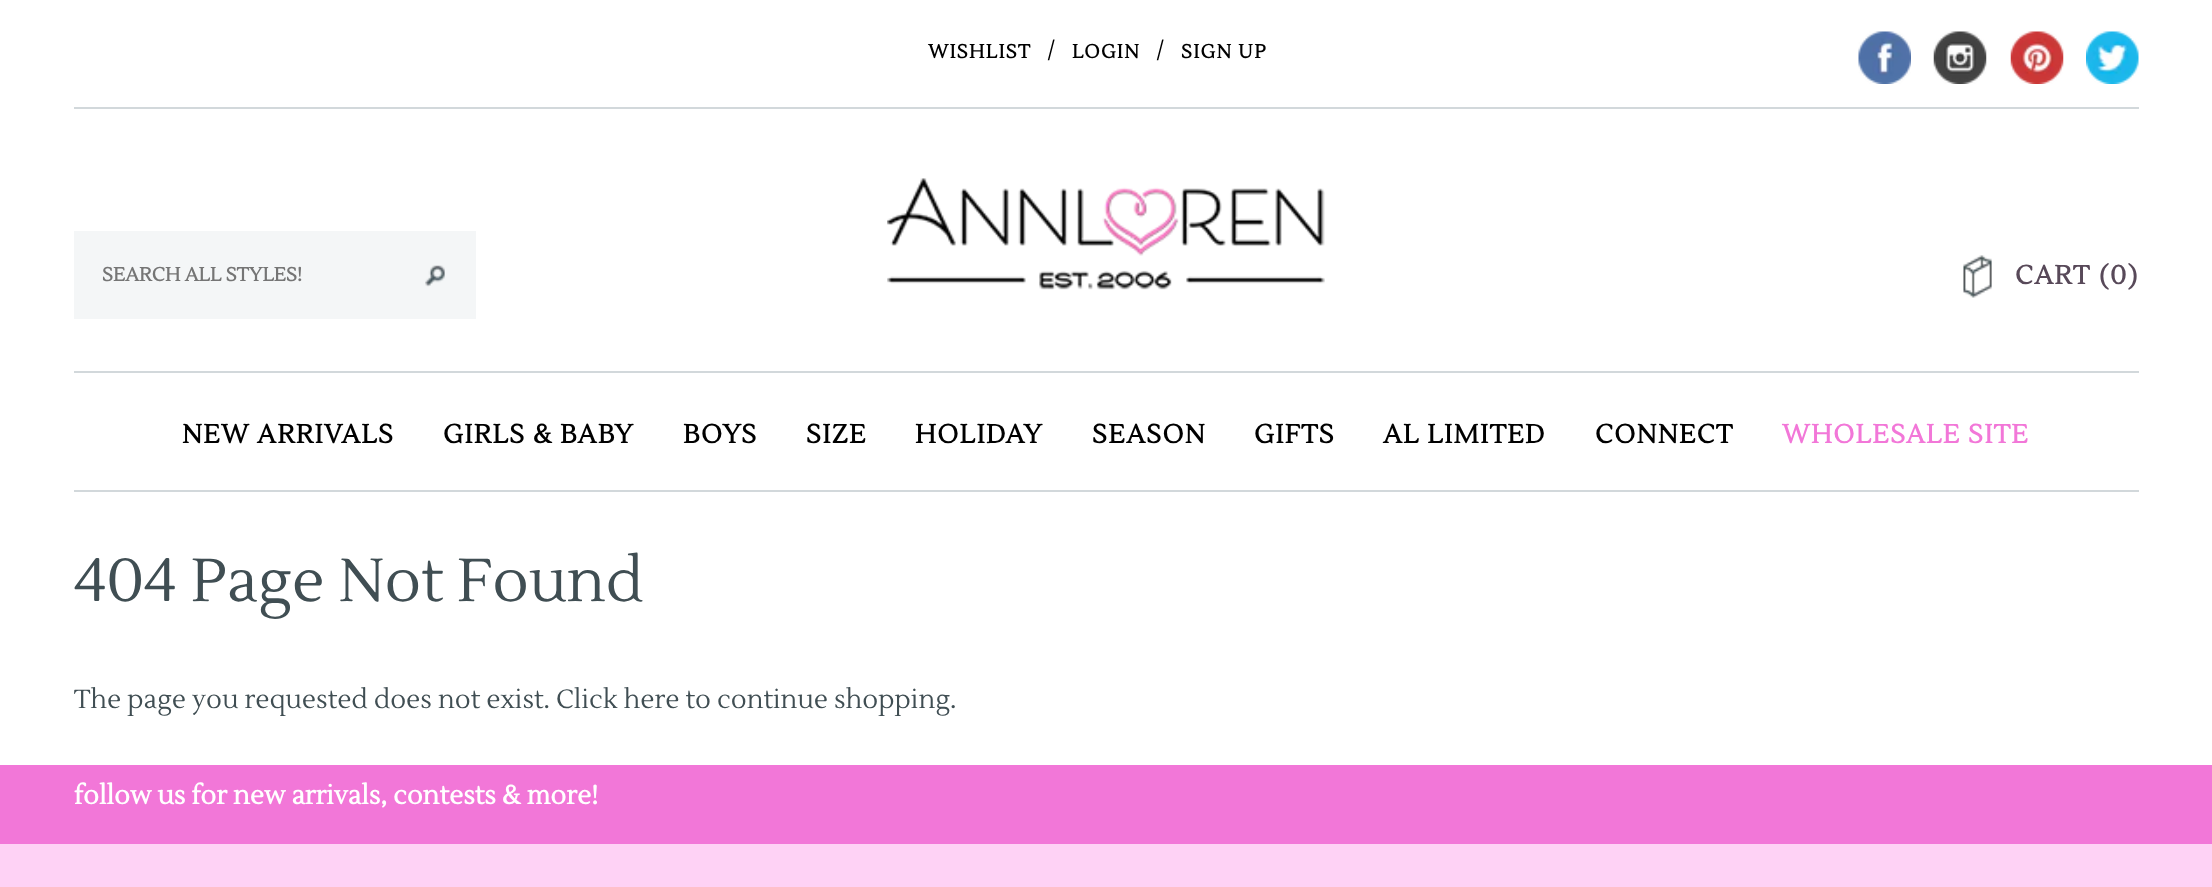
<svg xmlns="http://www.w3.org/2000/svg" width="2212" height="887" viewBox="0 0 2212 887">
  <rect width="100%" height="100%" fill="#fff"/>
  <path d="M74 371h2065v2H74z" fill="#d2d8db"/>
  <path d="M74 231h402v88H74z" fill="#f4f6f7"/>
  <image x="425" y="265" width="20" height="22" href="img/1.png"/>
  <image x="887" y="178" width="438" height="112" href="img/2.png"/>
  <path d="M74 107h2065v2H74z" fill="#d2d8db"/>
  <image x="1858" y="31" width="53" height="53" href="img/3.png"/>
  <image x="1933" y="31" width="54" height="53" href="img/4.png"/>
  <image x="2010" y="31" width="54" height="53" href="img/5.png"/>
  <image x="2086" y="31" width="53" height="53" href="img/6.png"/>
  <image x="1963" y="255" width="29" height="43" href="img/7.png"/>
  <path d="M74 490h2065v2H74z" fill="#d2d8db"/>
  <path d="M0 844h2212v43H0z" fill="#fed2f5"/>
  <path d="M0 765h2212v79H0z" fill="#f277d8"/>
  <text x="102" y="281" font-family="Lustria" font-size="19.25" font-weight="bold" fill="#757575">SEARCH ALL STYLES!</text>
  <text x="928" y="58" font-family="Lustria" font-size="19.25" font-weight="bold" letter-spacing="1.25" fill="#000">WISHLIST</text>
  <text x="1047" y="58" font-family="Lustria" font-size="24" letter-spacing="1.25" fill="#000">/</text>
  <text x="1072" y="58" font-family="Lustria" font-size="19.25" font-weight="bold" letter-spacing="1.25" fill="#000">LOGIN</text>
  <text x="1156" y="58" font-family="Lustria" font-size="24" letter-spacing="1.25" fill="#000">/</text>
  <text x="1181" y="58" font-family="Lustria" font-size="19.25" font-weight="bold" letter-spacing="1.25" fill="#000">SIGN UP</text>
  <g font-family="Lustria" font-size="26.25" font-weight="bold" letter-spacing="1.25" fill="#584959">
    <text x="2015" y="284">CART</text>
    <text x="2099" y="284">(0)</text>
  </g>
  <g font-family="Lustria" font-size="26.25" font-weight="bold" letter-spacing="1.25" fill="#000">
    <text x="182" y="443">NEW ARRIVALS</text>
    <text x="443" y="443">GIRLS &amp; BABY</text>
    <text x="683" y="443">BOYS</text>
    <text x="806" y="443">SIZE</text>
    <text x="915" y="443">HOLIDAY</text>
    <text x="1092" y="443">SEASON</text>
    <text x="1254" y="443">GIFTS</text>
    <text x="1383" y="443">AL LIMITED</text>
    <text x="1595" y="443">CONNECT</text>
  </g>
  <text x="1782" y="443" font-family="Lustria" font-size="26.25" font-weight="bold" letter-spacing="1.25" fill="#f277d8">WHOLESALE SITE</text>
  <text x="74" y="601" font-family="Lustria" font-size="60.5" fill="#404e53">404 Page Not Found</text>
  <text x="74" y="708" font-family="Lustria" font-size="26.25" fill="#404e53">The page you requested does not exist. Click here to continue shopping.</text>
  <text x="74" y="804" font-family="Lustria" font-size="26.25" font-weight="bold" fill="#fff">follow us for new arrivals, contests &amp; more!</text>
</svg>
